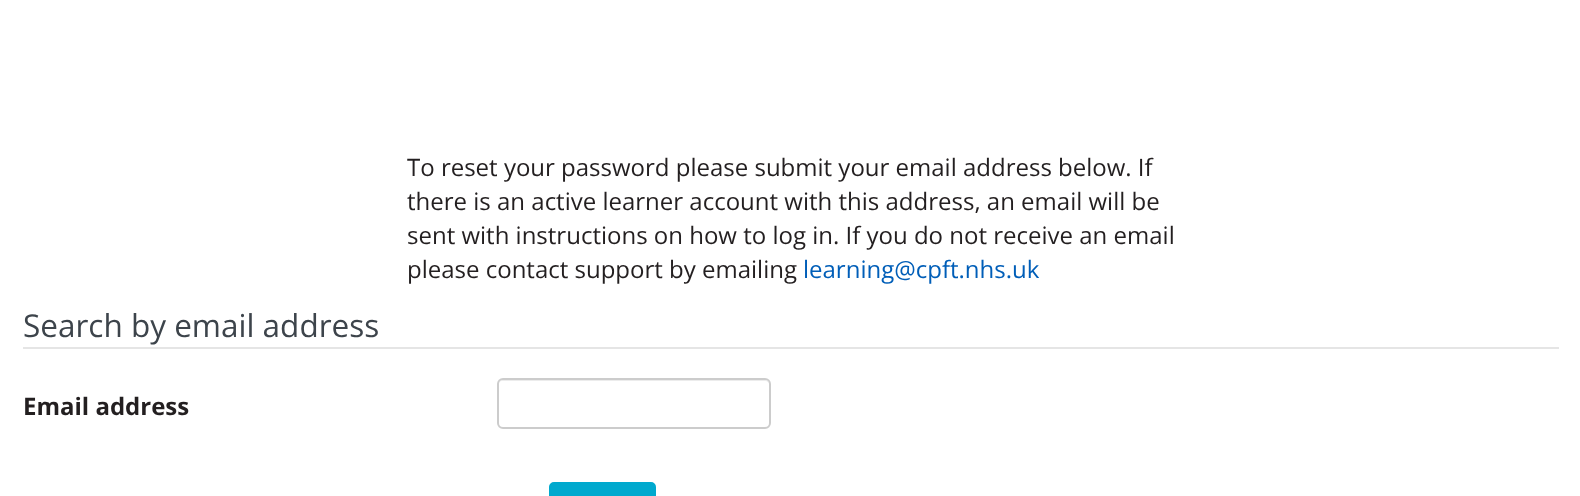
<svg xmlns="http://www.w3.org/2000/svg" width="1580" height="496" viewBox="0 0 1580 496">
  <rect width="100%" height="100%" fill="#fff"/>
  <path d="M23 347h1536v2H23z" fill="#e5e5e5"/>
  <path d="M502 381H765C767 381 770 383 770 386C770 383 768 380 765 380H503C500 380 498 383 498 386C498 383 500 381 502 381Z" fill="#ececec"/>
  <rect x="498" y="379" width="272" height="49" rx="5" fill="none" stroke="#ccc" stroke-width="2"/>
  <rect x="550" y="483" width="105" height="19" rx="4" fill="#00a9ce" stroke="#00a9ce" stroke-width="2"/>
  <g font-family="Open Sans" font-size="24" fill="#231f20">
    <text x="407" y="176">To reset your password please submit your email address below. If</text>
    <text x="407" y="210">there is an active learner account with this address, an email will be</text>
    <text x="407" y="244">sent with instructions on how to log in. If you do not receive an email</text>
    <text x="407" y="278">please contact support by emailing</text>
  </g>
  <text x="803" y="278" font-family="Open Sans" font-size="24" fill="#005eb8">learning@cpft.nhs.uk</text>
  <text x="23" y="337" font-family="Open Sans" font-size="31.5" fill="#3d444b">Search by email address</text>
  <text x="23" y="415" font-family="Open Sans" font-size="24" font-weight="bold" fill="#231f20">Email address</text>
</svg>
